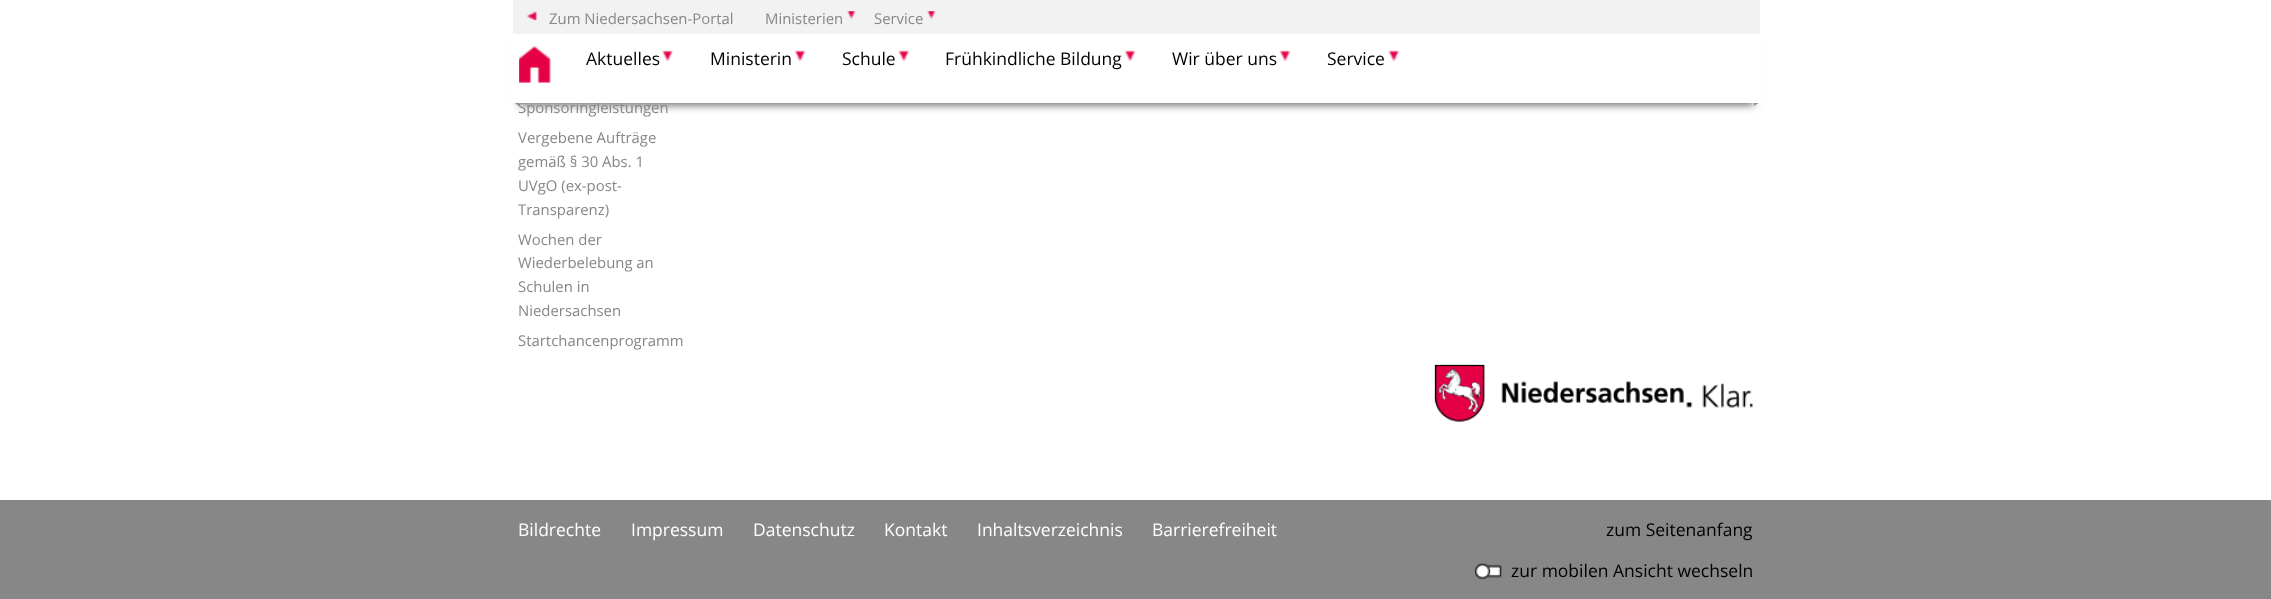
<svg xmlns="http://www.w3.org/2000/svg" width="2271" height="599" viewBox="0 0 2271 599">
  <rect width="100%" height="100%" fill="#fff"/>
  <path d="M519 36h1235v69H519z" fill="#666" filter="blur(4px)"/>
  <path d="M1754 106V102.5H1759Z" fill="#90908f"/>
  <path d="M1754 29h8v74H1754z" fill="#fff"/>
  <image x="1434" y="364" width="250" height="58" href="img/7.png"/>
  <image x="1686" y="383" width="67" height="25" href="img/8.png"/>
  <path d="M0 500h2271v99H0z" fill="#878787"/>
  <image x="1474" y="563" width="28" height="16" href="img/9.png"/>
  <text x="518" y="113" font-family="Open Sans" font-size="14.9" fill="#878787">Sponsoringleistungen</text>
  <path d="M519 102.5V106L514 102.5Z" fill="#90908f"/>
  <path d="M511 29h8v74H511z" fill="#fff"/>
  <path d="M513 0h1247v34H513z" fill="#f2f2f2"/>
  <text x="874" y="24" font-family="Open Sans" font-size="14.9" fill="#878787">Service</text>
  <image x="927" y="11" width="9" height="8" href="img/2.png"/>
  <text x="765" y="24" font-family="Open Sans" font-size="14.9" fill="#878787">Ministerien</text>
  <image x="847" y="11" width="9" height="8" href="img/2.png"/>
  <text x="549" y="24" font-family="Open Sans" font-size="14.9" fill="#878787">Zum Niedersachsen-Portal</text>
  <image x="526" y="11" width="11" height="10" href="img/1.png"/>
  <path d="M519 34h1235v69H519z" fill="#fff"/>
  <text x="1327" y="65" font-family="Open Sans" font-size="17.5" fill="#000">Service</text>
  <image x="1388" y="50" width="12" height="12" href="img/6.png"/>
  <text x="1172" y="65" font-family="Open Sans" font-size="17.5" fill="#000">Wir über uns</text>
  <image x="1279" y="50" width="12" height="12" href="img/5.png"/>
  <text x="945" y="65" font-family="Open Sans" font-size="17.5" fill="#000">Frühkindliche Bildung</text>
  <image x="1124" y="50" width="12" height="12" href="img/5.png"/>
  <text x="842" y="65" font-family="Open Sans" font-size="17.5" fill="#000">Schule</text>
  <image x="898" y="50" width="12" height="12" href="img/6.png"/>
  <text x="710" y="65" font-family="Open Sans" font-size="17.5" fill="#000">Ministerin</text>
  <image x="794" y="50" width="12" height="12" href="img/5.png"/>
  <text x="586" y="65" font-family="Open Sans" font-size="17.5" fill="#000">Aktuelles</text>
  <image x="662" y="50" width="11" height="12" href="img/4.png"/>
  <image x="519" y="45" width="32" height="38" href="img/3.png"/>
  <g font-family="Open Sans" font-size="14.9" fill="#878787">
    <text x="518" y="143">Vergebene Aufträge</text>
    <text x="518" y="167">gemäß § 30 Abs. 1</text>
    <text x="518" y="191">UVgO (ex-post-</text>
    <text x="518" y="215">Transparenz)</text>
    <text x="518" y="245">Wochen der</text>
    <text x="518" y="268">Wiederbelebung an</text>
    <text x="518" y="292">Schulen in</text>
    <text x="518" y="316">Niedersachsen</text>
    <text x="518" y="346">Startchancenprogramm</text>
  </g>
  <g font-family="Open Sans" font-size="17.5" fill="#fff">
    <text x="518" y="536">Bildrechte</text>
    <text x="631" y="536">Impressum</text>
    <text x="753" y="536">Datenschutz</text>
    <text x="884" y="536">Kontakt</text>
    <text x="977" y="536">Inhaltsverzeichnis</text>
    <text x="1152" y="536">Barrierefreiheit</text>
  </g>
  <g font-family="Open Sans" font-size="17.5" fill="#000">
    <text x="1606" y="536">zum Seitenanfang</text>
    <text x="1511" y="577">zur mobilen Ansicht wechseln</text>
  </g>
</svg>
